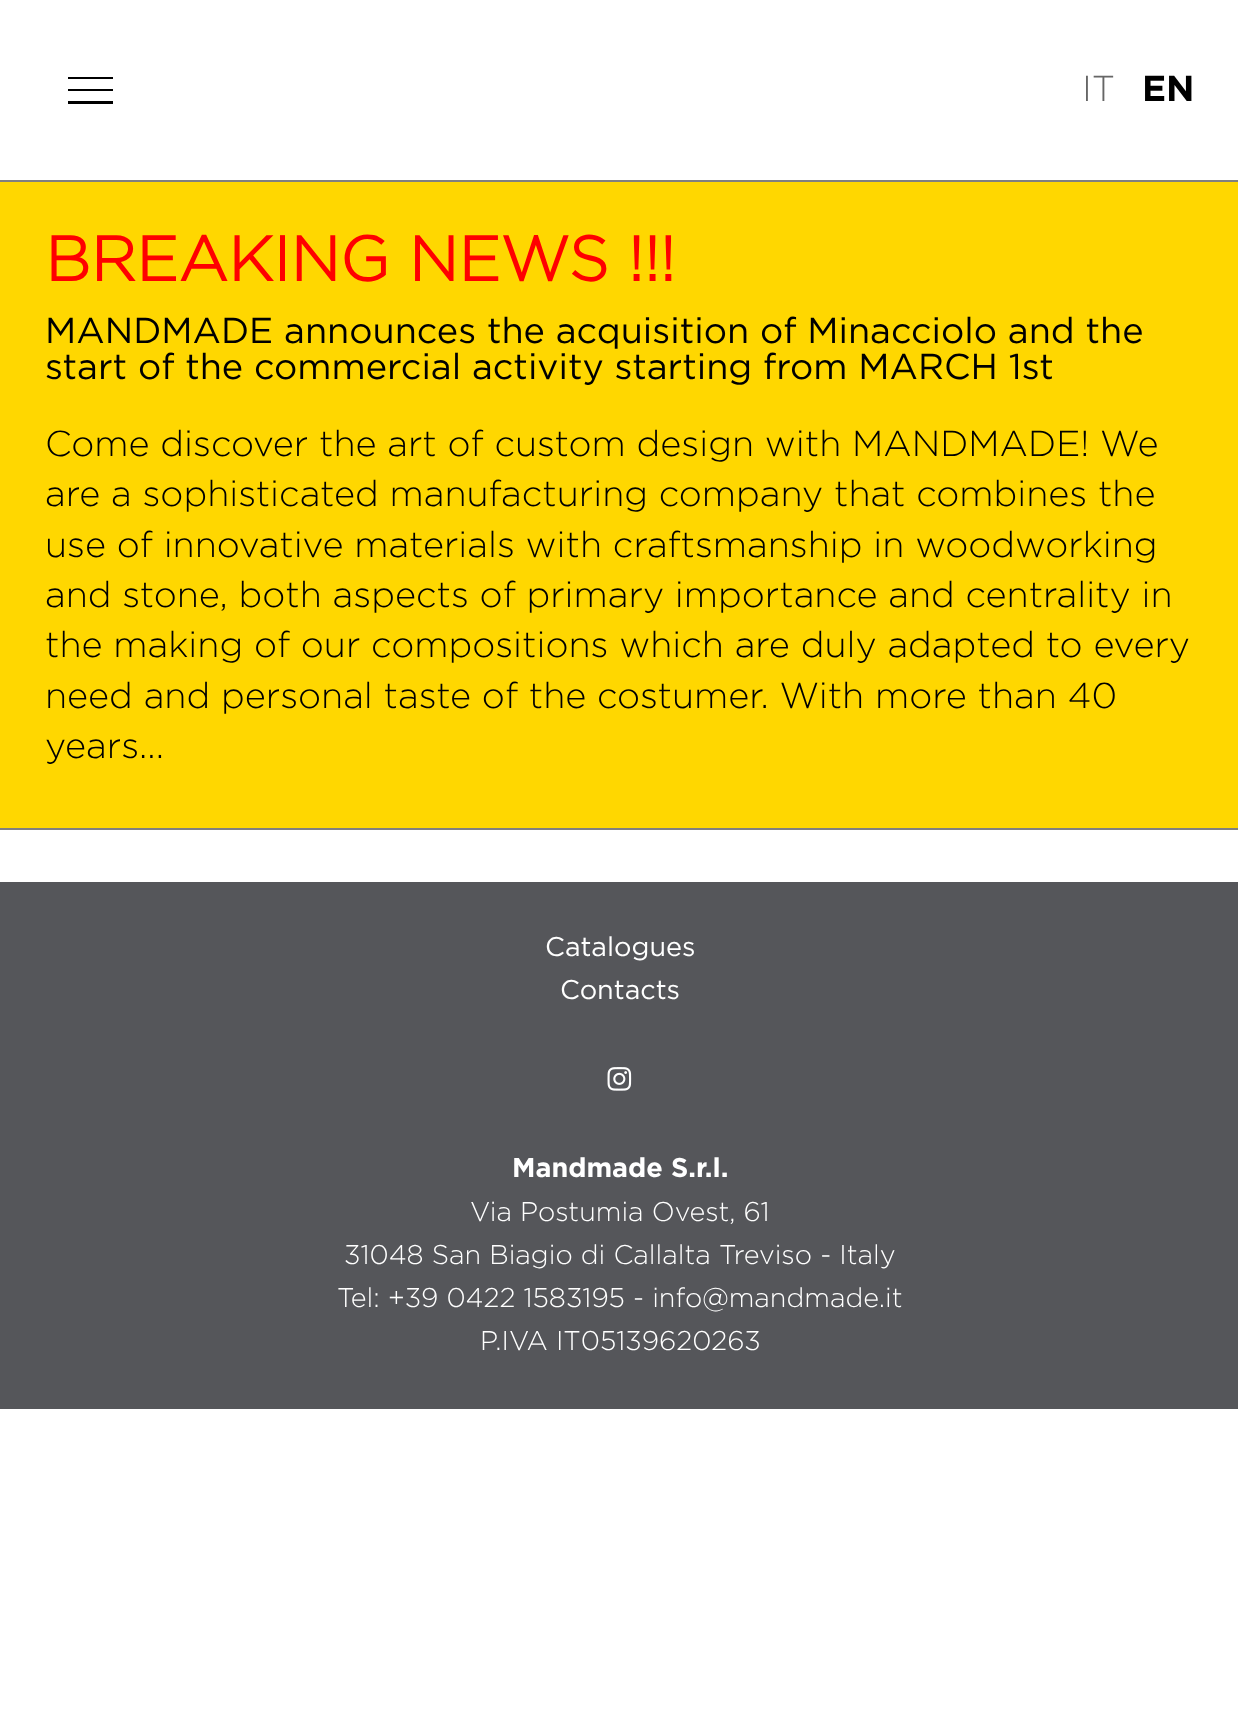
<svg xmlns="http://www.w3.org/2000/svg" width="1238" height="1728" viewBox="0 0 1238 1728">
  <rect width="100%" height="100%" fill="#fff"/>
  <path d="M68 89h45v2H68z" fill="#000"/>
  <path d="M68 77h45v2H68z" fill="#000"/>
  <path d="M68 101h45v3H68z" fill="#000"/>
  <path d="M0 182h1238v646H0z" fill="#ffd700"/>
  <path d="M0 180h1238v2H0z" fill="#808080"/>
  <path d="M0 828h1238v2H0z" fill="#808080"/>
  <path d="M0 882h1238v527H0z" fill="#55565a"/>
  <image x="607" y="1067" width="25" height="24" href="img/1.png"/>
  <text x="1082" y="101" font-family="Gotham" font-size="36" font-weight="300" fill="#666">IT</text>
  <text x="1142" y="101" font-family="'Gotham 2'" font-size="36" font-weight="bold" fill="#000">EN</text>
  <text x="45" y="281" font-family="Gotham" font-size="63" font-weight="bold" fill="#f00">BREAKING NEWS !!!</text>
  <g font-family="Gotham" font-size="36" fill="#000">
    <text x="45" y="343">MANDMADE announces the acquisition of Minacciolo and the</text>
    <text x="45" y="379">start of the commercial activity starting from MARCH 1st</text>
  </g>
  <g font-family="Gotham" font-size="36" font-weight="300" fill="#000">
    <text x="45" y="456">Come discover the art of custom design with MANDMADE! We</text>
    <text x="45" y="506">are a sophisticated manufacturing company that combines the</text>
    <text x="45" y="557">use of innovative materials with craftsmanship in woodworking</text>
    <text x="45" y="607">and stone, both aspects of primary importance and centrality in</text>
    <text x="45" y="657">the making of our compositions which are duly adapted to every</text>
    <text x="45" y="708">need and personal taste of the costumer. With more than 40</text>
    <text x="45" y="758">years...</text>
  </g>
  <g font-family="Gotham" font-size="27" fill="#fff">
    <text x="545" y="956">Catalogues</text>
    <text x="560" y="999">Contacts</text>
  </g>
  <text x="512" y="1177" font-family="'Gotham 2'" font-size="27" font-weight="bold" fill="#fff">Mandmade S.r.l.</text>
  <g font-family="Gotham" font-size="27" font-weight="300" fill="#fff">
    <text x="470" y="1221">Via Postumia Ovest, 61</text>
    <text x="344" y="1264">31048 San Biagio di Callalta Treviso - Italy</text>
    <text x="337" y="1307">Tel: +39 0422 1583195 - info@mandmade.it</text>
    <text x="480" y="1350">P.IVA IT05139620263</text>
  </g>
</svg>
